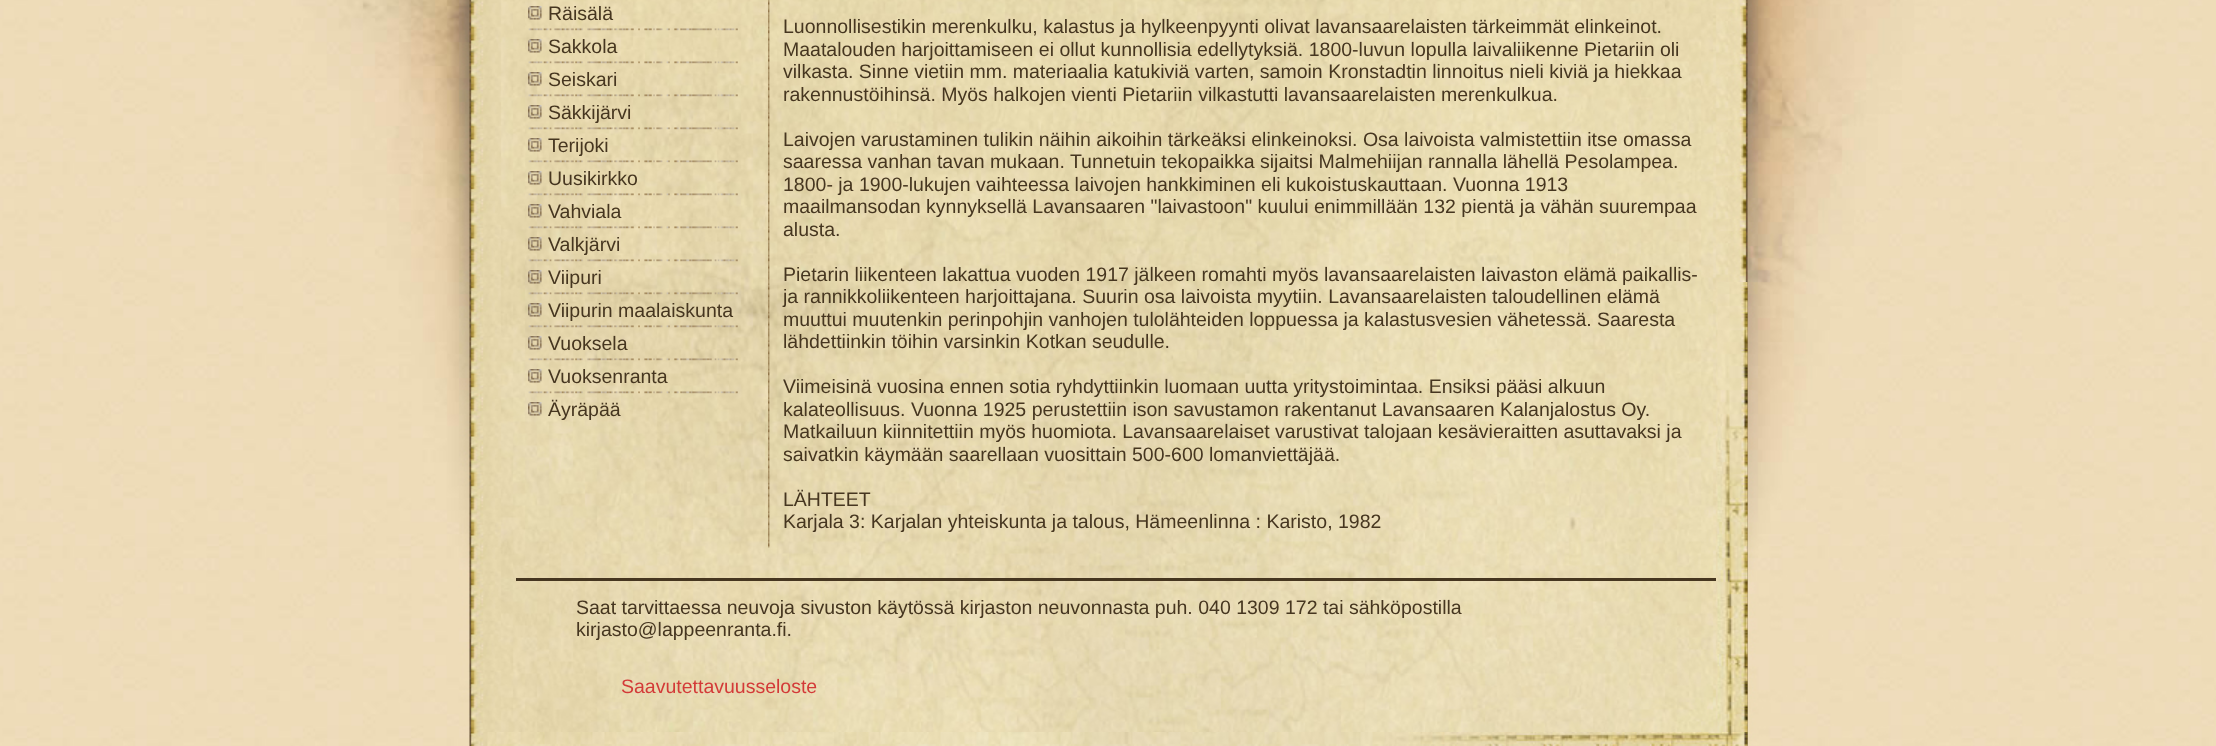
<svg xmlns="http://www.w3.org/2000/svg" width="2216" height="746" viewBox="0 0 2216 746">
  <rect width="100%" height="100%" fill="#fff"/>
  <image x="0" y="0" width="2216" height="746" href="img/1.png"/>
  <image x="528" y="28" width="210" height="3" href="img/2.png"/>
  <image x="528" y="6" width="14" height="14" href="img/3.png"/>
  <image x="528" y="61" width="210" height="3" href="img/4.png"/>
  <image x="528" y="39" width="14" height="14" href="img/5.png"/>
  <image x="528" y="94" width="210" height="3" href="img/6.png"/>
  <image x="528" y="72" width="14" height="14" href="img/7.png"/>
  <image x="528" y="127" width="210" height="3" href="img/8.png"/>
  <image x="528" y="105" width="14" height="14" href="img/9.png"/>
  <image x="528" y="160" width="210" height="3" href="img/10.png"/>
  <image x="528" y="138" width="14" height="14" href="img/11.png"/>
  <image x="528" y="193" width="210" height="3" href="img/12.png"/>
  <image x="528" y="171" width="14" height="14" href="img/13.png"/>
  <image x="528" y="226" width="210" height="3" href="img/14.png"/>
  <image x="528" y="204" width="14" height="14" href="img/15.png"/>
  <image x="528" y="259" width="210" height="3" href="img/16.png"/>
  <image x="528" y="237" width="14" height="14" href="img/17.png"/>
  <image x="528" y="292" width="210" height="3" href="img/18.png"/>
  <image x="528" y="270" width="14" height="14" href="img/19.png"/>
  <image x="528" y="325" width="210" height="3" href="img/20.png"/>
  <image x="528" y="303" width="14" height="14" href="img/21.png"/>
  <image x="528" y="358" width="210" height="3" href="img/22.png"/>
  <image x="528" y="336" width="14" height="14" href="img/23.png"/>
  <image x="528" y="391" width="210" height="3" href="img/24.png"/>
  <image x="528" y="369" width="14" height="14" href="img/25.png"/>
  <image x="528" y="402" width="14" height="14" href="img/26.png"/>
  <image x="768" y="0" width="2" height="548" href="img/27.png"/>
  <path d="M516 578h1200v3H516z" fill="#463620"/>
  <image x="1717" y="282" width="31" height="450" href="img/28.png"/>
  <image x="487" y="732" width="1261" height="14" href="img/29.png"/>
  <g font-family="Liberation Sans" font-size="19.5" fill="#463620">
    <text x="548" y="20">Räisälä</text>
    <text x="548" y="53">Sakkola</text>
    <text x="548" y="86">Seiskari</text>
    <text x="548" y="119">Säkkijärvi</text>
    <text x="548" y="152">Terijoki</text>
    <text x="548" y="185">Uusikirkko</text>
    <text x="548" y="218">Vahviala</text>
    <text x="548" y="251">Valkjärvi</text>
    <text x="548" y="284">Viipuri</text>
    <text x="548" y="317">Viipurin maalaiskunta</text>
    <text x="548" y="350">Vuoksela</text>
    <text x="548" y="383">Vuoksenranta</text>
    <text x="548" y="416">Äyräpää</text>
    <text x="783" y="33">Luonnollisestikin merenkulku, kalastus ja hylkeenpyynti olivat lavansaarelaisten tärkeimmät elinkeinot.</text>
    <text x="783" y="56">Maatalouden harjoittamiseen ei ollut kunnollisia edellytyksiä. 1800-luvun lopulla laivaliikenne Pietariin oli</text>
    <text x="783" y="78">vilkasta. Sinne vietiin mm. materiaalia katukiviä varten, samoin Kronstadtin linnoitus nieli kiviä ja hiekkaa</text>
    <text x="783" y="101">rakennustöihinsä. Myös halkojen vienti Pietariin vilkastutti lavansaarelaisten merenkulkua.</text>
    <text x="783" y="146">Laivojen varustaminen tulikin näihin aikoihin tärkeäksi elinkeinoksi. Osa laivoista valmistettiin itse omassa</text>
    <text x="783" y="168">saaressa vanhan tavan mukaan. Tunnetuin tekopaikka sijaitsi Malmehiijan rannalla lähellä Pesolampea.</text>
    <text x="783" y="191">1800- ja 1900-lukujen vaihteessa laivojen hankkiminen eli kukoistuskauttaan. Vuonna 1913</text>
    <text x="783" y="213">maailmansodan kynnyksellä Lavansaaren "laivastoon" kuului enimmillään 132 pientä ja vähän suurempaa</text>
    <text x="783" y="236">alusta.</text>
    <text x="783" y="281">Pietarin liikenteen lakattua vuoden 1917 jälkeen romahti myös lavansaarelaisten laivaston elämä paikallis-</text>
    <text x="783" y="303">ja rannikkoliikenteen harjoittajana. Suurin osa laivoista myytiin. Lavansaarelaisten taloudellinen elämä</text>
    <text x="783" y="326">muuttui muutenkin perinpohjin vanhojen tulolähteiden loppuessa ja kalastusvesien vähetessä. Saaresta</text>
    <text x="783" y="348">lähdettiinkin töihin varsinkin Kotkan seudulle.</text>
    <text x="783" y="393">Viimeisinä vuosina ennen sotia ryhdyttiinkin luomaan uutta yritystoimintaa. Ensiksi pääsi alkuun</text>
    <text x="783" y="416">kalateollisuus. Vuonna 1925 perustettiin ison savustamon rakentanut Lavansaaren Kalanjalostus Oy.</text>
    <text x="783" y="438">Matkailuun kiinnitettiin myös huomiota. Lavansaarelaiset varustivat talojaan kesävieraitten asuttavaksi ja</text>
    <text x="783" y="461">saivatkin käymään saarellaan vuosittain 500-600 lomanviettäjää.</text>
    <text x="783" y="506">LÄHTEET</text>
    <text x="783" y="528">Karjala 3: Karjalan yhteiskunta ja talous, Hämeenlinna : Karisto, 1982</text>
    <text x="576" y="614">Saat tarvittaessa neuvoja sivuston käytössä kirjaston neuvonnasta puh. 040 1309 172 tai sähköpostilla</text>
    <text x="576" y="636">kirjasto@lappeenranta.fi.</text>
  </g>
  <text x="621" y="693" font-family="Liberation Sans" font-size="19.5" fill="#d33a38">Saavutettavuusseloste</text>
</svg>
